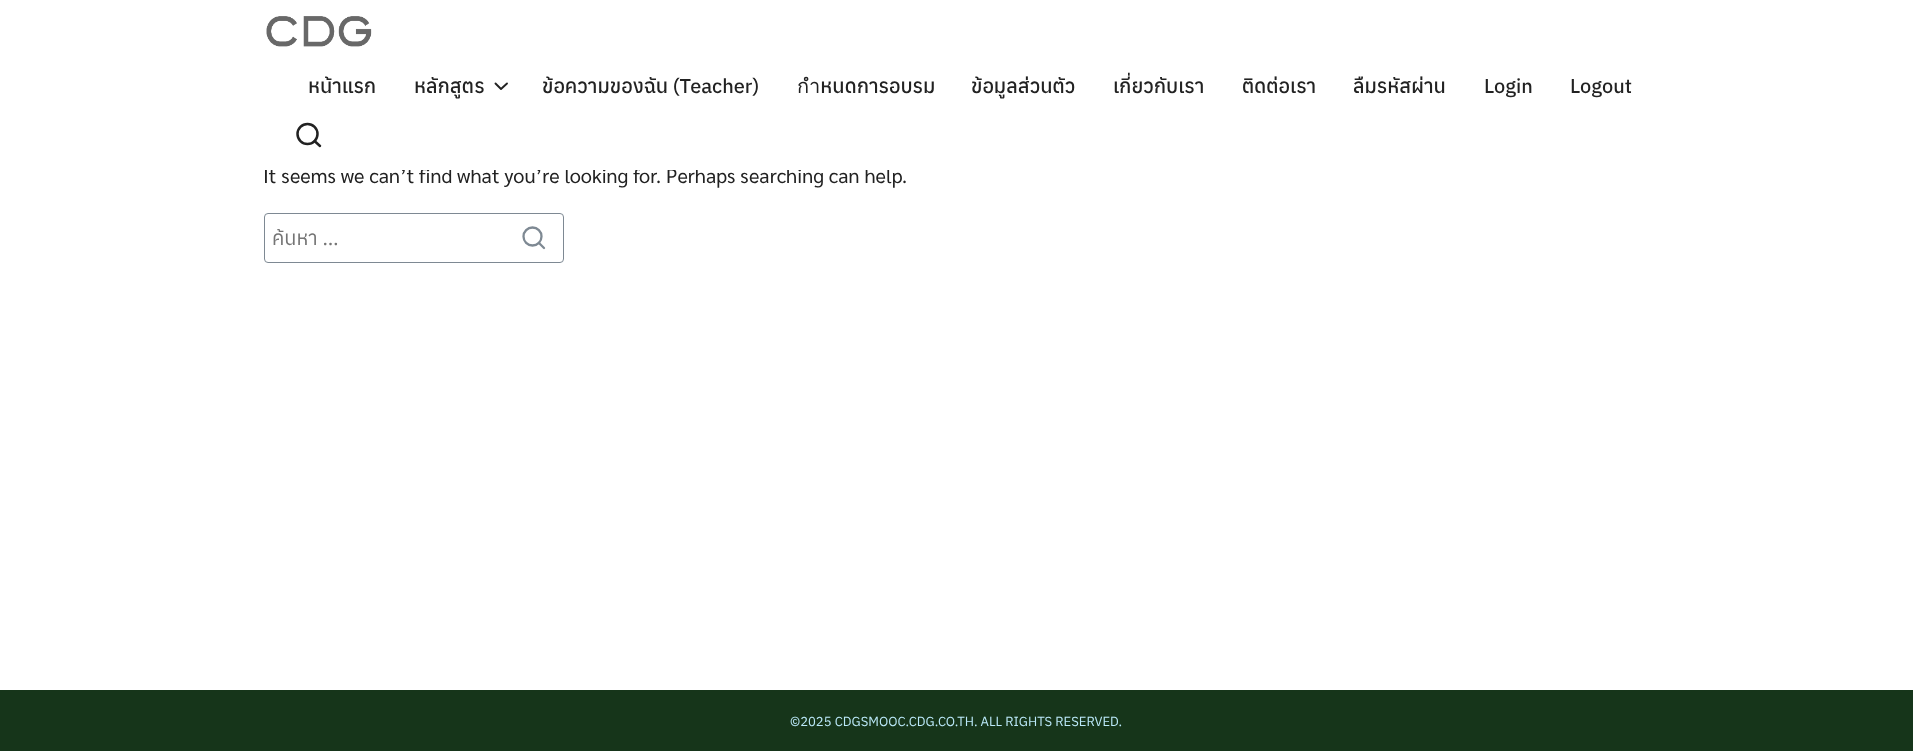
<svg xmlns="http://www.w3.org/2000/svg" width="1913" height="751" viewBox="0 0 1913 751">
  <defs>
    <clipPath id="clip1"><path d="M273 223h275v28H273z"/></clipPath>
  </defs>
  <rect width="100%" height="100%" fill="#fff"/>
  <image x="266" y="16" width="106" height="31" href="img/1.png"/>
  <path d="M495.5 83.5L501 89L507 83.5" fill="none" stroke="#222" stroke-width="1.9" stroke-linecap="round" stroke-linejoin="round"/>
  <circle cx="307.5" cy="134" r="10" fill="none" stroke="#222" stroke-width="2.5"/>
  <path d="M320 146L314.5 141" fill="none" stroke="#222" stroke-width="2.5" stroke-linecap="round" stroke-linejoin="round"/>
  <rect x="264.5" y="213.5" width="299" height="49" rx="3.5" fill="none" stroke="#7e8993"/>
  <circle cx="532.5" cy="236.5" r="9" fill="none" stroke="#7e8993" stroke-width="2.3"/>
  <path d="M544 248L539 243" fill="none" stroke="#7e8993" stroke-width="2.3" stroke-linecap="round" stroke-linejoin="round"/>
  <path d="M0 690h1913v61H0z" fill="#16351a"/>
  <g font-family="Anuphan" font-size="20" font-weight="500" fill="#222">
    <text x="308" y="93">หน้าแรก</text>
    <text x="414" y="93">หลักสูตร</text>
    <text x="542" y="93">ข้อความของฉัน (Teacher)</text>
    <text x="797" y="93">กำหนดการอบรม</text>
    <text x="971" y="93">ข้อมูลส่วนตัว</text>
    <text x="1113" y="93">เกี่ยวกับเรา</text>
    <text x="1242" y="93">ติดต่อเรา</text>
    <text x="1353" y="93">ลืมรหัสผ่าน</text>
    <text x="1484" y="93">Login</text>
    <text x="1570" y="93">Logout</text>
  </g>
  <text x="263" y="183" font-family="Sarabun" font-size="20" fill="#222">It seems we can’t find what you’re looking for. Perhaps searching can help.</text>
  <path d="M265 168h625v2H265z" fill="#fff"/>
  <g clip-path="url(#clip1)">
    <text x="272" y="245" font-family="Anuphan" font-size="20" fill="#757575">ค้นหา …</text>
  </g>
  <text x="790" y="726" font-family="Anuphan" font-size="13.1" fill="#bbe9f9">©2025 CDGSMOOC.CDG.CO.TH. ALL RIGHTS RESERVED.</text>
</svg>
